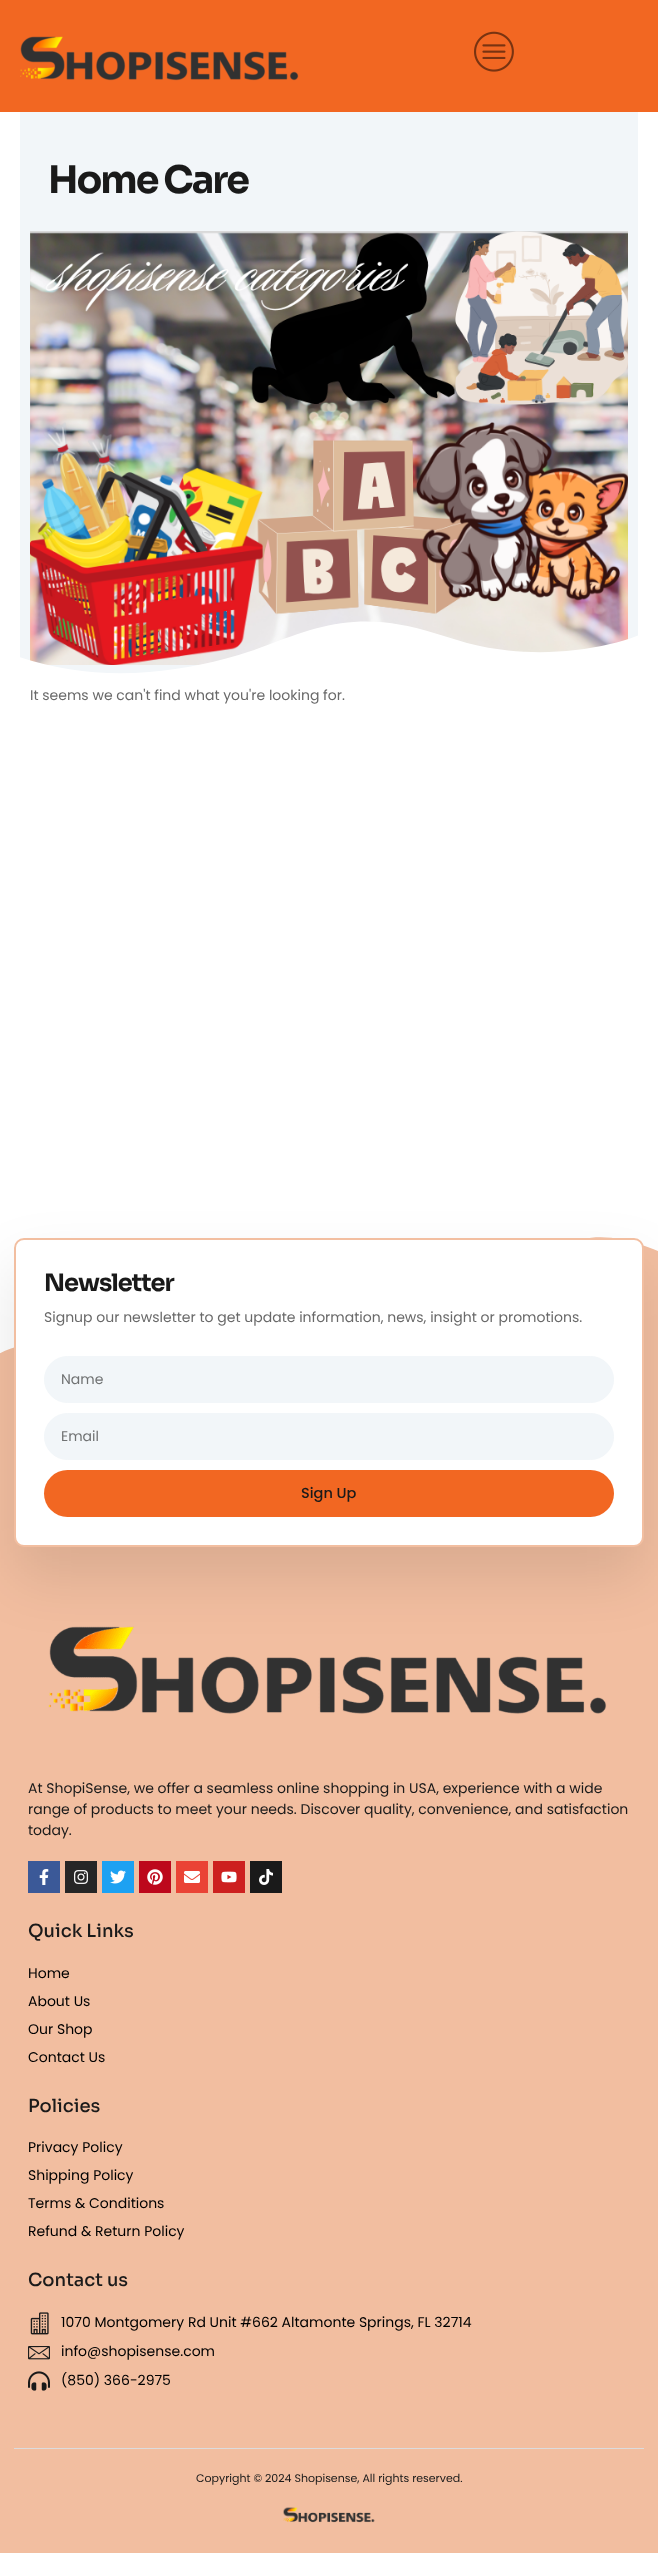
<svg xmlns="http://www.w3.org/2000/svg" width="658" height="2553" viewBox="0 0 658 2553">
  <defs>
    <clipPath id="clip1"><path d="M20 621h618v54H20z"/></clipPath>
  </defs>
  <rect width="100%" height="100%" fill="#fff"/>
  <path d="M0 0h658v112H0z" fill="#f26722"/>
  <image x="20" y="36" width="279" height="45" href="img/1.png"/>
  <image x="474" y="31" width="40" height="41" href="img/2.png"/>
  <path d="M20 112h618v562H20z" fill="#f2f6f9"/>
  <image x="30" y="231" width="598" height="434" href="img/3.png"/>
  <g clip-path="url(#clip1)">
    <path d="M149 672C184 669 218 662 251 651C285 639 318 624 354 622C381 620 408 625 434 633L467 643C513 655 564 655 610 644C619 642 629 639 639 635V676H19V657C61 671 106 676 149 672Z" fill="#fff"/>
  </g>
  <path d="M0 1237h658v1316H0z" fill="#f2bea0"/>
  <path d="M568 1243C519 1257 472 1292 410 1380C385 1415 346 1466 327 1479C307 1493 284 1501 265 1494C256 1491 246 1490 223 1473C201 1456 175 1428 158 1405C124 1362 80 1345 48 1343C-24 1339-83 1428-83 1428V1224H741V1319C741 1319 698 1266 653 1249C609 1232 588 1237 568 1243Z" fill="#fff"/>
  <rect x="14" y="1268" width="630" height="309" rx="10" fill="#0000001a" filter="blur(30px)"/>
  <rect x="15" y="1239" width="628" height="307" rx="9" fill="#fff" stroke="#f2bea0" stroke-width="2"/>
  <rect x="44.5" y="1356.5" width="569" height="46" rx="23" fill="#f2f6f9" stroke="#f2f6f9"/>
  <rect x="44.5" y="1413.5" width="569" height="46" rx="23" fill="#f2f6f9" stroke="#f2f6f9"/>
  <rect x="44" y="1470" width="570" height="47" rx="23.5" fill="#f26722"/>
  <path d="M14 2448h630v1H14z" fill="#dcdcde"/>
  <image x="48" y="1626" width="559" height="88" href="img/4.png"/>
  <path d="M28 1861h32v32H28z" fill="#3b5998"/>
  <image x="39" y="1869" width="10" height="16" href="img/5.png"/>
  <path d="M65 1861h32v32H65z" fill="#262626"/>
  <image x="74" y="1870" width="14" height="14" href="img/6.png"/>
  <path d="M102 1861h32v32H102z" fill="#1da1f2"/>
  <image x="110" y="1870" width="16" height="14" href="img/7.png"/>
  <path d="M139 1861h32v32H139z" fill="#bd081c"/>
  <image x="147" y="1869" width="16" height="16" href="img/8.png"/>
  <path d="M176 1861h32v32H176z" fill="#ea4335"/>
  <image x="184" y="1871" width="16" height="12" href="img/9.png"/>
  <path d="M213 1861h32v32H213z" fill="#cd201f"/>
  <image x="221" y="1871" width="16" height="12" href="img/10.png"/>
  <path d="M250 1861h32v32H250z" fill="#1a1a1a"/>
  <image x="259" y="1869" width="14" height="16" href="img/11.png"/>
  <image x="30" y="2312" width="19" height="23" href="img/12.png"/>
  <image x="28" y="2346" width="22" height="14" href="img/13.png"/>
  <image x="28" y="2371" width="22" height="20" href="img/14.png"/>
  <image x="283" y="2507" width="92" height="16" href="img/15.png"/>
  <text x="48" y="193" font-family="Sora" font-size="38" font-weight="bold" letter-spacing="-2" fill="#1a1a1a">Home Care</text>
  <text x="30" y="700" font-family="Poppins" font-size="14" fill="#696969">It seems we can't find what you're looking for.</text>
  <text x="44" y="1291" font-family="Sora" font-size="24" font-weight="bold" letter-spacing="-1" fill="#1a1a1a">Newsletter</text>
  <text x="44" y="1322" font-family="Poppins" font-size="14" fill="#696969">Signup our newsletter to get update information, news, insight or promotions.</text>
  <g font-family="Poppins" font-size="14" fill="#707273">
    <text x="61" y="1384">Name</text>
    <text x="61" y="1441">Email</text>
  </g>
  <text x="301" y="1498" font-family="Poppins" font-size="14.5" font-weight="500" fill="#1a1a1a">Sign Up</text>
  <g font-family="Poppins" font-size="14" fill="#1a1a1a">
    <text x="28" y="1793">At ShopiSense, we offer a seamless online shopping in USA, experience with a wide</text>
    <text x="28" y="1814">range of products to meet your needs. Discover quality, convenience, and satisfaction</text>
    <text x="28" y="1835">today.</text>
  </g>
  <text x="28" y="1937" font-family="Sora" font-size="18" font-weight="500" fill="#1a1a1a">Quick Links</text>
  <g font-family="Poppins" font-size="14" fill="#000">
    <text x="28" y="1978">Home</text>
    <text x="28" y="2006">About Us</text>
    <text x="28" y="2034">Our Shop</text>
    <text x="28" y="2062">Contact Us</text>
  </g>
  <text x="28" y="2112" font-family="Sora" font-size="18" font-weight="500" fill="#1a1a1a">Policies</text>
  <g font-family="Poppins" font-size="14" fill="#000">
    <text x="28" y="2152">Privacy Policy</text>
    <text x="28" y="2180">Shipping Policy</text>
    <text x="28" y="2208">Terms &amp; Conditions</text>
    <text x="28" y="2236">Refund &amp; Return Policy</text>
  </g>
  <text x="28" y="2286" font-family="Sora" font-size="18" font-weight="500" fill="#1a1a1a">Contact us</text>
  <g font-family="Poppins" font-size="14" fill="#000">
    <text x="61" y="2327">1070 Montgomery Rd Unit #662 Altamonte Springs, FL 32714</text>
    <text x="61" y="2356">info@shopisense.com</text>
    <text x="61" y="2385">(850) 366-2975</text>
  </g>
  <text x="196" y="2482" font-family="Poppins" font-size="11" fill="#1a1a1a">Copyright © 2024 Shopisense, All rights reserved.</text>
</svg>
